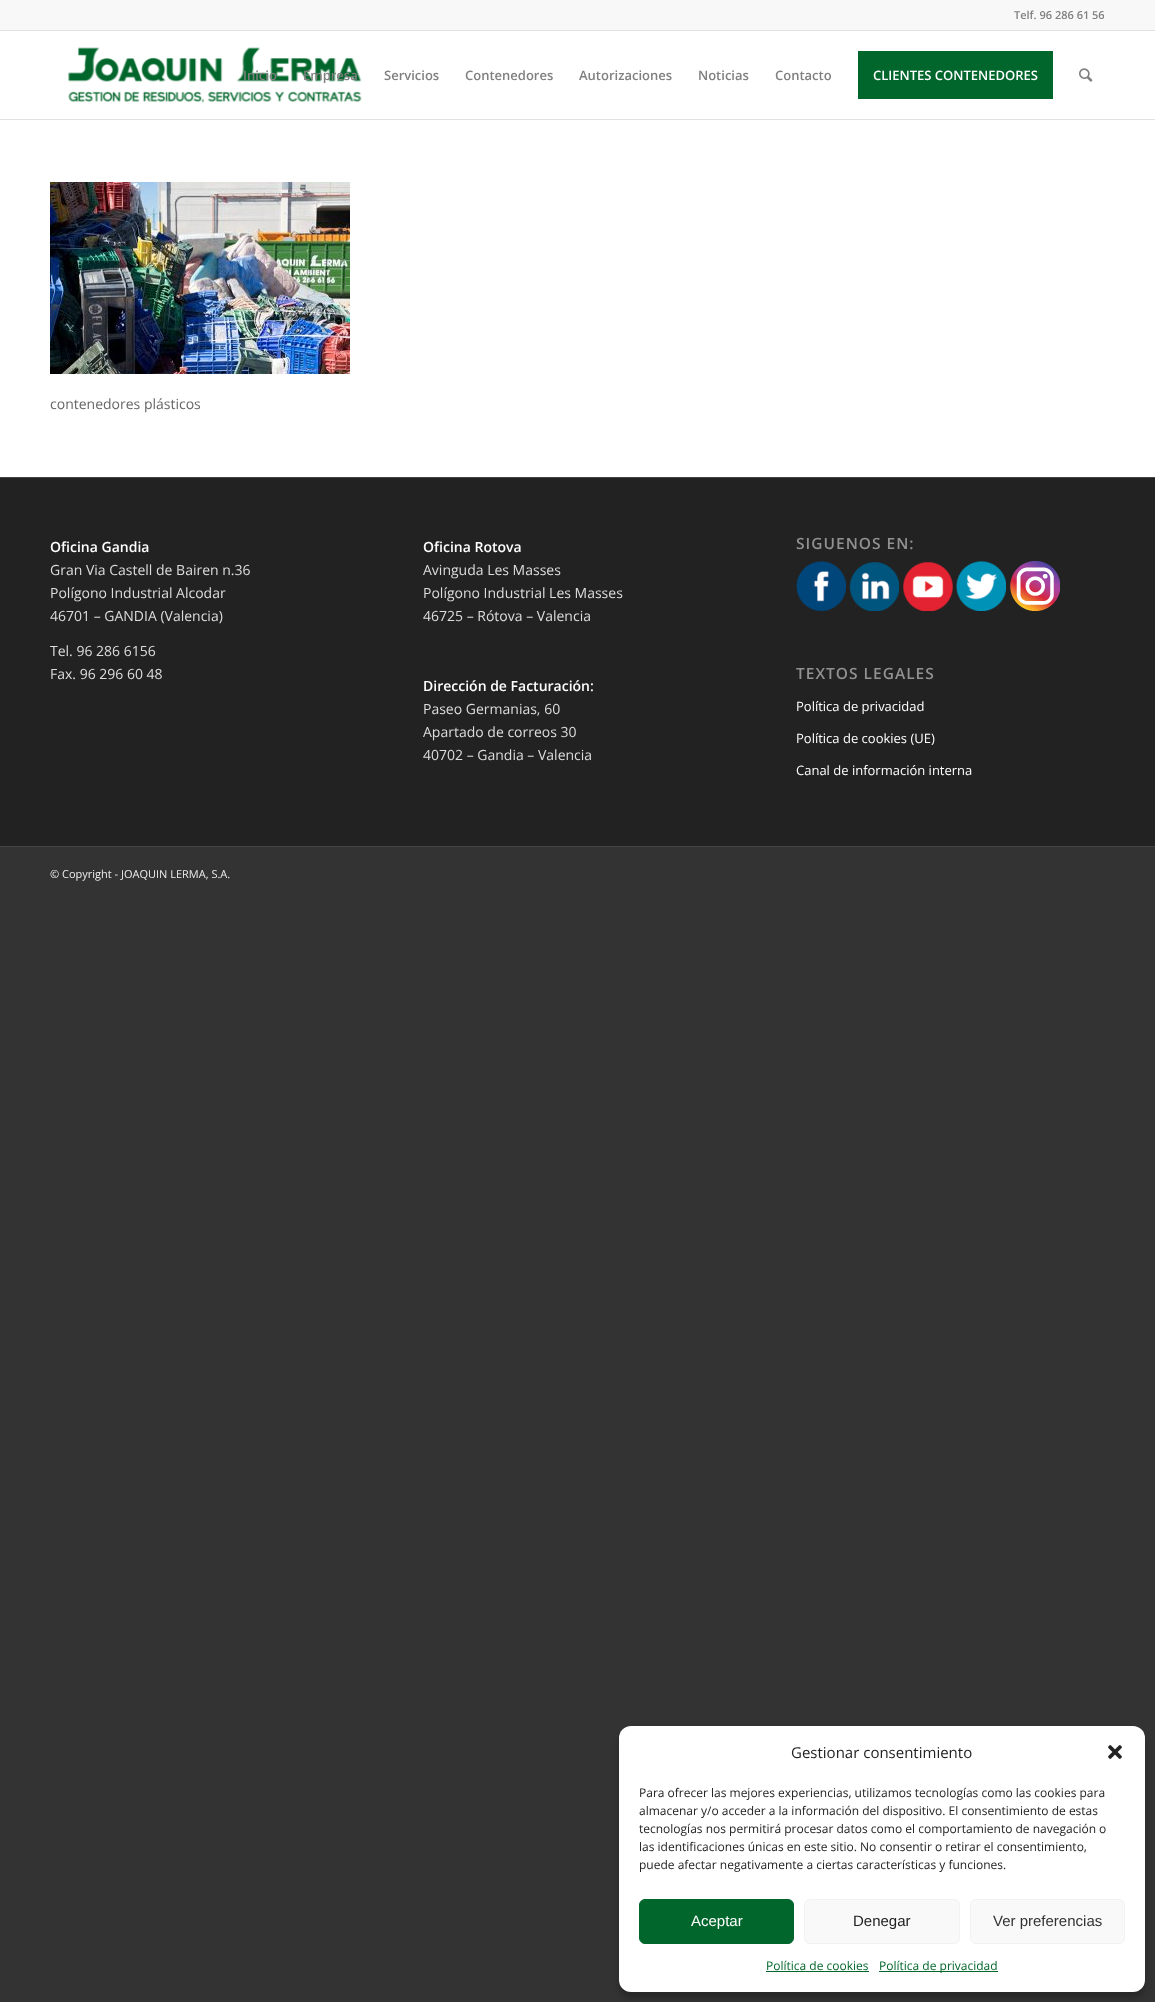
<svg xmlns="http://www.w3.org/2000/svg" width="1155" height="2002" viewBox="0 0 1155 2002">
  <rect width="100%" height="100%" fill="#333"/>
  <path d="M0 0h1155v30H0z" fill="#f8f8f8"/>
  <path d="M0 30h1155v1H0z" fill="#e1e1e1"/>
  <path d="M0 119h1155v1H0z" fill="#e1e1e1"/>
  <path d="M0 31h1155v88H0z" fill="#fff"/>
  <image x="68" y="47" width="294" height="56" href="img/1.png"/>
  <path d="M858 51h195v48H858z" fill="#00662b"/>
  <image x="1079" y="68" width="14" height="14" href="img/2.png"/>
  <path d="M0 120h1155v357H0z" fill="#fff"/>
  <image x="50" y="182" width="300" height="192" href="img/3.png"/>
  <path d="M0 478h1155v368H0z" fill="#222"/>
  <path d="M0 477h1155v1H0z" fill="#444"/>
  <image x="796" y="561" width="50" height="50" href="img/4.png"/>
  <image x="849" y="562" width="50" height="49" href="img/5.png"/>
  <image x="903" y="562" width="50" height="49" href="img/6.png"/>
  <image x="956" y="561" width="50" height="50" href="img/7.png"/>
  <image x="1010" y="561" width="50" height="50" href="img/8.png"/>
  <path d="M0 846h1155v1H0z" fill="#444"/>
  <rect x="619" y="1732" width="526" height="266" rx="12" fill="#0000003b" filter="blur(3px)"/>
  <rect x="619" y="1726" width="526" height="266" rx="12" fill="#fff"/>
  <image x="1108" y="1745" width="14" height="14" href="img/9.png"/>
  <rect x="639.5" y="1899.5" width="154" height="44" rx="5.5" fill="#00662b" stroke="#00662b"/>
  <rect x="804.5" y="1899.5" width="155" height="44" rx="5.5" fill="#f9f9f9" stroke="#f2f2f2"/>
  <rect x="970.5" y="1899.5" width="154" height="44" rx="5.5" fill="#f9f9f9" stroke="#f2f2f2"/>
  <path d="M766 1971h103v1H766z" fill="#00662b"/>
  <path d="M879 1971h119v1H879z" fill="#00662b"/>
  <text x="1014" y="19" font-family="Open Sans" font-size="11" font-weight="600" fill="#808080">Telf. 96 286 61 56</text>
  <g font-family="Open Sans" font-size="13" font-weight="600" fill="#808080">
    <text x="243" y="80">Inicio</text>
    <text x="303" y="80">Empresa</text>
    <text x="384" y="80">Servicios</text>
    <text x="465" y="80">Contenedores</text>
    <text x="579" y="80">Autorizaciones</text>
    <text x="698" y="80">Noticias</text>
    <text x="775" y="80">Contacto</text>
  </g>
  <text x="873" y="80" font-family="Open Sans" font-size="13" font-weight="600" fill="#fff">CLIENTES CONTENEDORES</text>
  <text x="50" y="409" font-family="Open Sans" font-size="14" fill="#666">contenedores plásticos</text>
  <text x="50" y="552" font-family="Open Sans" font-size="14" font-weight="600" fill="#fff">Oficina Gandia</text>
  <g font-family="Open Sans" font-size="14" fill="#ddd">
    <text x="50" y="575">Gran Via Castell de Bairen n.36</text>
    <text x="50" y="598">Polígono Industrial Alcodar</text>
    <text x="50" y="621">46701 – GANDIA (Valencia)</text>
    <text x="50" y="656">Tel. 96 286 6156</text>
    <text x="50" y="679">Fax. 96 296 60 48</text>
  </g>
  <text x="423" y="552" font-family="Open Sans" font-size="14" font-weight="600" fill="#fff">Oficina Rotova</text>
  <g font-family="Open Sans" font-size="14" fill="#ddd">
    <text x="423" y="575">Avinguda Les Masses</text>
    <text x="423" y="598">Polígono Industrial Les Masses</text>
    <text x="423" y="621">46725 – Rótova – Valencia</text>
  </g>
  <text x="423" y="691" font-family="Open Sans" font-size="14" font-weight="600" fill="#fff">Dirección de Facturación:</text>
  <g font-family="Open Sans" font-size="14" fill="#ddd">
    <text x="423" y="714">Paseo Germanias, 60</text>
    <text x="423" y="737">Apartado de correos 30</text>
    <text x="423" y="760">40702 – Gandia – Valencia</text>
  </g>
  <g font-family="Open Sans" font-size="15.5" font-weight="600" letter-spacing="1" fill="#919191">
    <text x="796" y="549">SIGUENOS EN:</text>
    <text x="796" y="679">TEXTOS LEGALES</text>
  </g>
  <g font-family="Open Sans" font-size="13" fill="#fff">
    <text x="796" y="711">Política de privacidad</text>
    <text x="796" y="743">Política de cookies (UE)</text>
    <text x="796" y="775">Canal de información interna</text>
  </g>
  <text x="50" y="878" font-family="Open Sans" font-size="11" fill="#eee">© Copyright - JOAQUIN LERMA, S.A.</text>
  <text x="791" y="1758" font-family="Open Sans" font-size="15" fill="#222">Gestionar consentimiento</text>
  <g font-family="Open Sans" font-size="12" fill="#222">
    <text x="639" y="1797">Para ofrecer las mejores experiencias, utilizamos tecnologías como las cookies para</text>
    <text x="639" y="1815">almacenar y/o acceder a la información del dispositivo. El consentimiento de estas</text>
    <text x="639" y="1833">tecnologías nos permitirá procesar datos como el comportamiento de navegación o</text>
    <text x="639" y="1851">las identificaciones únicas en este sitio. No consentir o retirar el consentimiento,</text>
    <text x="639" y="1869">puede afectar negativamente a ciertas características y funciones.</text>
  </g>
  <text x="691" y="1926" font-family="Liberation Sans" font-size="15" fill="#fff">Aceptar</text>
  <text x="853" y="1926" font-family="Liberation Sans" font-size="15" fill="#222">Denegar</text>
  <text x="993" y="1926" font-family="Liberation Sans" font-size="15" fill="#333">Ver preferencias</text>
  <g font-family="Open Sans" font-size="12" fill="#00662b">
    <text x="766" y="1970">Política de cookies</text>
    <text x="879" y="1970">Política de privacidad</text>
  </g>
</svg>
